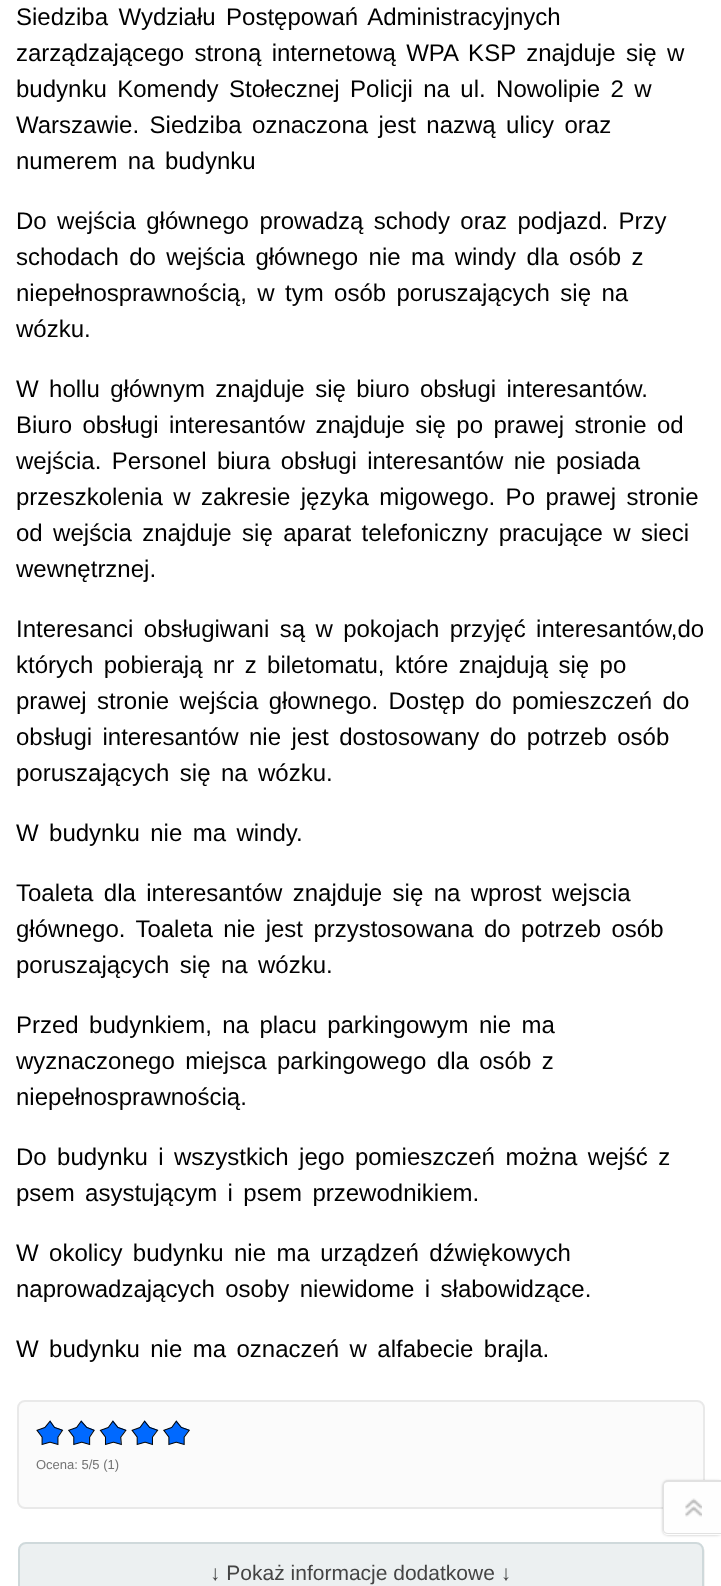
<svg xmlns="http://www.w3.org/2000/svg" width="721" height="1586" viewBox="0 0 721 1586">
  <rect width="100%" height="100%" fill="#fff"/>
  <rect x="18" y="1401" width="686" height="107" rx="7" fill="#fbfbfb" stroke="#e9e9e9" stroke-width="2"/>
  <path d="M37 1420h153v25H37z" fill="#0069ff"/>
  <image x="36" y="1419" width="165" height="38" href="img/1.png"/>
  <path d="M22 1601C23 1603 25 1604 28 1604H697C701 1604 705 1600 705 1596V1552C705 1550 704 1548 703 1547L704 1550V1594C704 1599 700 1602 696 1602H26C24 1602 23 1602 22 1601Z" fill="#f2f2f2"/>
  <rect x="19" y="1543" width="684" height="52" rx="7" fill="#ecf0f1" stroke="#cfd9db" stroke-width="2"/>
  <rect x="663" y="1481" width="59" height="54" rx="5" fill="#00000040" filter="blur(1.5px)"/>
  <path d="M668 1481H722V1535H668C665 1535 663 1533 663 1530V1486C663 1483 665 1481 668 1481Z" fill="#fefefe"/>
  <path d="M668 1480H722V1534H668C665 1534 663 1532 663 1530V1485C663 1483 665 1480 668 1480ZM668 1482H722V1533H668C666 1533 664 1532 664 1530V1485C664 1483 666 1482 668 1482Z" fill="#e1e1e1" fill-rule="evenodd"/>
  <image x="685" y="1498" width="17" height="19" href="img/2.png"/>
  <g font-family="Liberation Sans" font-size="24" fill="#000">
    <text x="16" y="25" word-spacing="3.75">Siedziba Wydziału Postępowań Administracyjnych</text>
    <text x="16" y="61" word-spacing="3.75">zarządzającego stroną internetową WPA KSP znajduje się w</text>
    <text x="16" y="97" word-spacing="3.75">budynku Komendy Stołecznej Policji na ul. Nowolipie 2 w</text>
    <text x="16" y="133" word-spacing="3.75">Warszawie. Siedziba oznaczona jest nazwą ulicy oraz</text>
    <text x="16" y="169" word-spacing="3.75">numerem na budynku</text>
    <text x="16" y="229" word-spacing="3.75">Do wejścia głównego prowadzą schody oraz podjazd. Przy</text>
    <text x="16" y="265" word-spacing="3.75">schodach do wejścia głównego nie ma windy dla osób z</text>
    <text x="16" y="301" word-spacing="3.75">niepełnosprawnością, w tym osób poruszających się na</text>
    <text x="16" y="337">wózku.</text>
    <text x="16" y="397" word-spacing="3.75">W hollu głównym znajduje się biuro obsługi interesantów.</text>
    <text x="16" y="433" word-spacing="3.75">Biuro obsługi interesantów znajduje się po prawej stronie od</text>
    <text x="16" y="469" word-spacing="3.75">wejścia. Personel biura obsługi interesantów nie posiada</text>
    <text x="16" y="505" word-spacing="3.75">przeszkolenia w zakresie języka migowego. Po prawej stronie</text>
    <text x="16" y="541" word-spacing="3.75">od wejścia znajduje się aparat telefoniczny pracujące w sieci</text>
    <text x="16" y="577">wewnętrznej.</text>
    <text x="16" y="637" word-spacing="3.75">Interesanci obsługiwani są w pokojach przyjęć interesantów,do</text>
    <text x="16" y="673" word-spacing="3.75">których pobierają nr z biletomatu, które znajdują się po</text>
    <text x="16" y="709" word-spacing="3.75">prawej stronie wejścia głownego. Dostęp do pomieszczeń do</text>
    <text x="16" y="745" word-spacing="3.75">obsługi interesantów nie jest dostosowany do potrzeb osób</text>
    <text x="16" y="781" word-spacing="3.75">poruszających się na wózku.</text>
    <text x="16" y="841" word-spacing="3.75">W budynku nie ma windy.</text>
    <text x="16" y="901" word-spacing="3.75">Toaleta dla interesantów znajduje się na wprost wejscia</text>
    <text x="16" y="937" word-spacing="3.75">głównego. Toaleta nie jest przystosowana do potrzeb osób</text>
    <text x="16" y="973" word-spacing="3.75">poruszających się na wózku.</text>
    <text x="16" y="1033" word-spacing="3.75">Przed budynkiem, na placu parkingowym nie ma</text>
    <text x="16" y="1069" word-spacing="3.75">wyznaczonego miejsca parkingowego dla osób z</text>
    <text x="16" y="1105">niepełnosprawnością.</text>
    <text x="16" y="1165" word-spacing="3.75">Do budynku i wszystkich jego pomieszczeń można wejść z</text>
    <text x="16" y="1201" word-spacing="3.75">psem asystującym i psem przewodnikiem.</text>
    <text x="16" y="1261" word-spacing="3.75">W okolicy budynku nie ma urządzeń dźwiękowych</text>
    <text x="16" y="1297" word-spacing="3.75">naprowadzających osoby niewidome i słabowidzące.</text>
    <text x="16" y="1357" word-spacing="3.75">W budynku nie ma oznaczeń w alfabecie brajla.</text>
  </g>
  <text x="36" y="1469" font-family="Liberation Sans" font-size="13" fill="#737373">Ocena: 5/5 (1)</text>
  <text x="210" y="1580" font-family="Liberation Sans" font-size="21" fill="#444">↓ Pokaż informacje dodatkowe ↓</text>
</svg>
